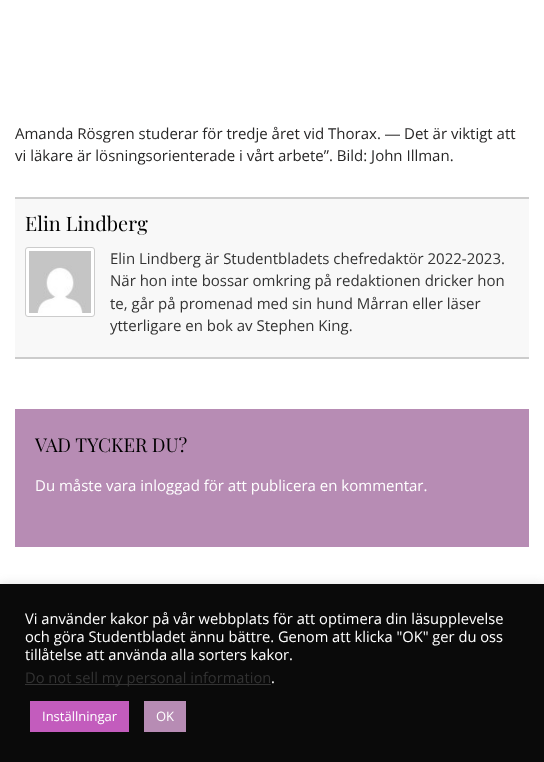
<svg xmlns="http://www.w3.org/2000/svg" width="544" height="762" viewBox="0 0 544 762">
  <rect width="100%" height="100%" fill="#fff"/>
  <path d="M15 199h514v158H15z" fill="#f8f8f8"/>
  <path d="M15 197h514v2H15z" fill="#ccc"/>
  <path d="M15 357h514v2H15z" fill="#ccc"/>
  <rect x="25.5" y="247.5" width="69" height="69" rx="2.5" fill="#fff" stroke="#ccc"/>
  <image x="29" y="251" width="62" height="62" href="img/1.png"/>
  <path d="M15 409h514v138H15z" fill="#b78cb4"/>
  <path d="M0 583h544v178H0z" fill="#acabab4d" filter="blur(5px)"/>
  <path d="M0 584h544v178H0z" fill="#0a0a0a"/>
  <path d="M25 684h246v1H25z" fill="#333"/>
  <path d="M30 701h99v31H30z" fill="#c35cbd"/>
  <path d="M144 701h42v31H144z" fill="#b78cb4"/>
  <text x="15" y="139" font-family="Open Sans" font-size="15" fill="#272626">Amanda Rösgren studerar för tredje året vid Thorax.</text>
  <text x="385" y="139" font-family="Liberation Sans" font-size="15" fill="#272626">―</text>
  <g font-family="Open Sans" font-size="15" fill="#272626">
    <text x="404" y="139">Det är viktigt att</text>
    <text x="15" y="161">vi läkare är lösningsorienterade i vårt arbete”. Bild: John Illman.</text>
  </g>
  <text x="25" y="231" font-family="Playfair Display" font-size="20" fill="#000">Elin Lindberg</text>
  <g font-family="Open Sans" font-size="15" fill="#333">
    <text x="110" y="264">Elin Lindberg är Studentbladets chefredaktör 2022-2023.</text>
    <text x="110" y="286">När hon inte bossar omkring på redaktionen dricker hon</text>
    <text x="110" y="309">te, går på promenad med sin hund Mårran eller läser</text>
    <text x="110" y="331">ytterligare en bok av Stephen King.</text>
  </g>
  <text x="35" y="452" font-family="Playfair Display" font-size="19" fill="#000">VAD TYCKER DU?</text>
  <text x="35" y="491" font-family="Open Sans" font-size="15" fill="#fff">Du måste vara inloggad för att publicera en kommentar.</text>
  <g font-family="Open Sans" font-size="14.7" fill="#fff">
    <text x="25" y="624">Vi använder kakor på vår webbplats för att optimera din läsupplevelse</text>
    <text x="25" y="642">och göra Studentbladet ännu bättre. Genom att klicka "OK" ger du oss</text>
    <text x="25" y="660">tillåtelse att använda alla sorters kakor.</text>
  </g>
  <text x="25" y="683" font-family="Open Sans" font-size="14.7" fill="#333">Do not sell my personal information</text>
  <text x="271" y="683" font-family="Open Sans" font-size="14.7" fill="#fff">.</text>
  <g font-family="Open Sans" font-size="13" fill="#fff">
    <text x="42" y="721">Inställningar</text>
    <text x="156" y="721">OK</text>
  </g>
</svg>
